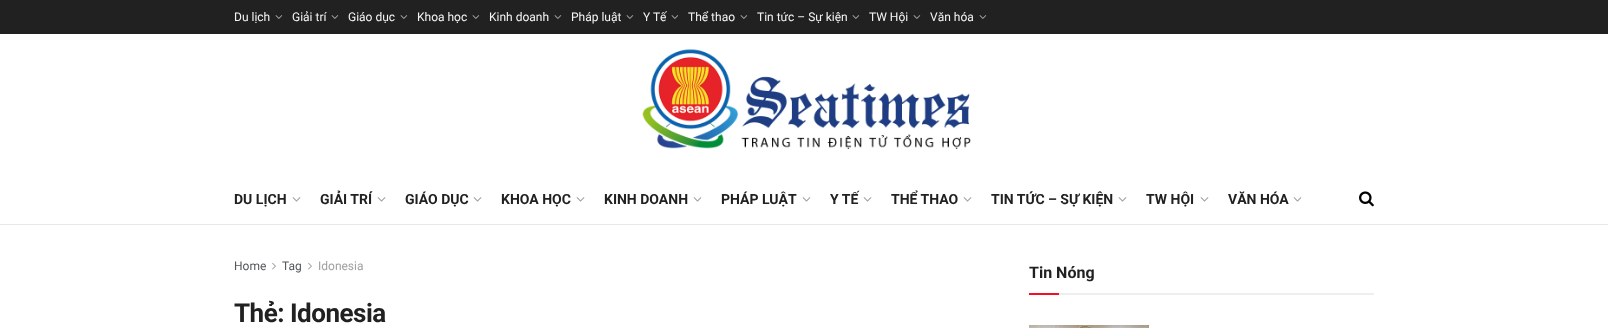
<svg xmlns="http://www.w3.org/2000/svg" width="1608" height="328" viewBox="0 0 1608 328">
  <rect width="100%" height="100%" fill="#fff"/>
  <path d="M0 0h1608v34H0z" fill="#212121"/>
  <image x="275" y="15" width="8" height="4" href="img/1.png"/>
  <image x="331" y="15" width="8" height="4" href="img/1.png"/>
  <image x="400" y="15" width="8" height="4" href="img/1.png"/>
  <image x="472" y="15" width="8" height="4" href="img/1.png"/>
  <image x="554" y="15" width="8" height="4" href="img/1.png"/>
  <image x="626" y="15" width="8" height="4" href="img/1.png"/>
  <image x="671" y="15" width="8" height="4" href="img/1.png"/>
  <image x="740" y="15" width="8" height="4" href="img/1.png"/>
  <image x="852" y="15" width="8" height="4" href="img/1.png"/>
  <image x="913" y="15" width="8" height="4" href="img/1.png"/>
  <image x="979" y="15" width="8" height="4" href="img/1.png"/>
  <image x="642" y="49" width="329" height="100" href="img/2.png"/>
  <path d="M0 224h1608v1H0z" fill="#e8e8e8"/>
  <image x="292" y="197" width="9" height="5" href="img/3.png"/>
  <image x="377" y="197" width="9" height="5" href="img/3.png"/>
  <image x="473" y="197" width="9" height="5" href="img/3.png"/>
  <image x="576" y="197" width="9" height="5" href="img/3.png"/>
  <image x="693" y="197" width="9" height="5" href="img/3.png"/>
  <image x="802" y="197" width="9" height="5" href="img/3.png"/>
  <image x="863" y="197" width="9" height="5" href="img/3.png"/>
  <image x="963" y="197" width="9" height="5" href="img/3.png"/>
  <image x="1118" y="197" width="9" height="5" href="img/3.png"/>
  <image x="1200" y="197" width="9" height="5" href="img/3.png"/>
  <image x="1293" y="197" width="9" height="5" href="img/3.png"/>
  <image x="1359" y="191" width="15" height="16" href="img/4.png"/>
  <image x="272" y="262" width="4" height="8" href="img/5.png"/>
  <image x="308" y="262" width="4" height="8" href="img/5.png"/>
  <path d="M1059 293h315v2H1059z" fill="#eee"/>
  <path d="M1029 293h30v2H1029z" fill="#f70d28"/>
  <image x="1029" y="325" width="120" height="3" href="img/6.png"/>
  <g font-family="Roboto" font-size="12" fill="#f5f5f5">
    <text x="234" y="21">Du lịch</text>
    <text x="292" y="21">Giải trí</text>
    <text x="348" y="21">Giáo dục</text>
    <text x="417" y="21">Khoa học</text>
    <text x="489" y="21">Kinh doanh</text>
    <text x="571" y="21">Pháp luật</text>
    <text x="643" y="21">Y Tế</text>
    <text x="688" y="21">Thể thao</text>
    <text x="757" y="21">Tin tức – Sự kiện</text>
    <text x="869" y="21">TW Hội</text>
    <text x="930" y="21">Văn hóa</text>
  </g>
  <g font-family="Roboto" font-size="14" font-weight="bold" fill="#212121">
    <text x="234" y="204">DU LỊCH</text>
    <text x="320" y="204">GIẢI TRÍ</text>
    <text x="405" y="204">GIÁO DỤC</text>
    <text x="501" y="204">KHOA HỌC</text>
    <text x="604" y="204">KINH DOANH</text>
    <text x="721" y="204">PHÁP LUẬT</text>
    <text x="830" y="204">Y TẾ</text>
    <text x="891" y="204">THỂ THAO</text>
    <text x="991" y="204">TIN TỨC – SỰ KIỆN</text>
    <text x="1146" y="204">TW HỘI</text>
    <text x="1228" y="204">VĂN HÓA</text>
  </g>
  <g font-family="Roboto" font-size="12" fill="#53585c">
    <text x="234" y="270">Home</text>
    <text x="282" y="270">Tag</text>
  </g>
  <text x="318" y="270" font-family="Roboto" font-size="12" fill="#a0a0a0">Idonesia</text>
  <text x="234" y="322" font-family="Roboto" font-size="26" font-weight="bold" letter-spacing="-0.5" fill="#212121">Thẻ: Idonesia</text>
  <text x="1029" y="278" font-family="Roboto" font-size="16" font-weight="bold" fill="#212121">Tin Nóng</text>
</svg>
